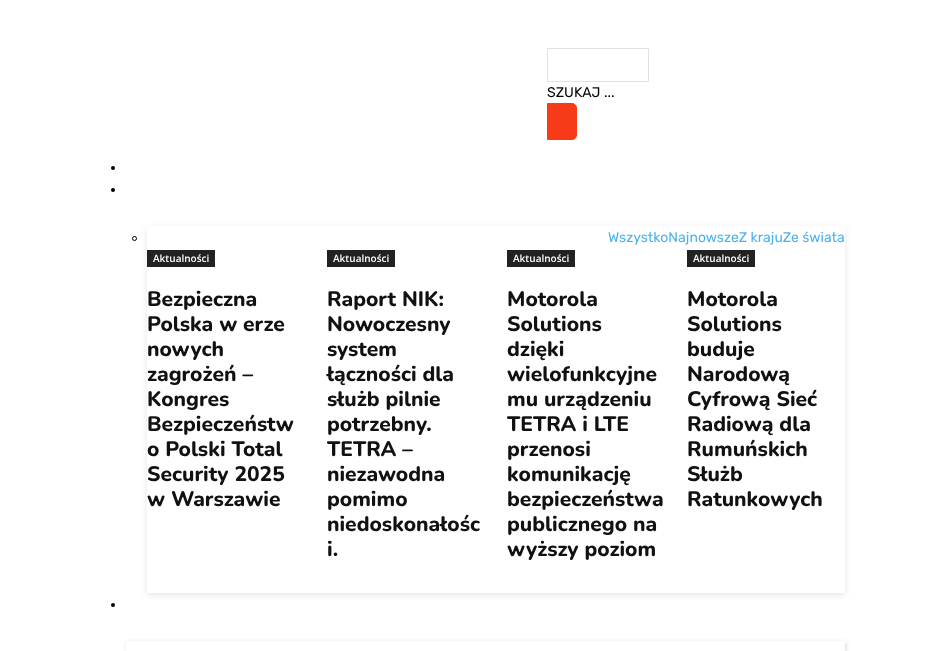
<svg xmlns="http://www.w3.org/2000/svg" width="949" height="651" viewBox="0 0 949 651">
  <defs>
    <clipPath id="clip1"><path d="M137 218H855V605H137ZM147 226H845V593H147Z" clip-rule="evenodd"/></clipPath>
    <clipPath id="clip2"><path d="M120 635H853V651H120ZM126 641H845V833H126Z" clip-rule="evenodd"/></clipPath>
  </defs>
  <rect width="100%" height="100%" fill="#fff"/>
  <path d="M547.5 48.5h101v33H547.5z" fill="none" stroke="#e1e1e1"/>
  <path d="M547.5 103.5H572C574.5 103.5 576.5 105.5 576.5 108V135C576.5 137.5 574.5 139.5 572 139.5H547.5Z" fill="#f73a18" stroke="#f73a18"/>
  <circle cx="113" cy="168" r="2" fill="#000"/>
  <circle cx="113" cy="190" r="2" fill="#000"/>
  <g clip-path="url(#clip1)">
    <path d="M147 228h698v367H147z" fill="#0000001a" filter="blur(3px)"/>
  </g>
  <circle cx="134.5" cy="238.5" r="2" fill="none" stroke="#000"/>
  <path d="M147 250h68v17H147z" fill="#222"/>
  <path d="M327 250h68v17H327z" fill="#222"/>
  <path d="M507 250h68v17H507z" fill="#222"/>
  <path d="M687 250h68v17H687z" fill="#222"/>
  <circle cx="113" cy="605" r="2" fill="#000"/>
  <g clip-path="url(#clip2)">
    <path d="M127 642h719v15H127z" fill="#00000026" filter="blur(2px)"/>
  </g>
  <text x="547" y="97" font-family="Rubik" font-size="14" fill="#030303">SZUKAJ ...</text>
  <text x="608" y="242" font-family="Rubik" font-size="14" fill="#4db2ec">WszystkoNajnowszeZ krajuZe świata</text>
  <text x="153" y="262" font-family="Open Sans" font-size="10" font-weight="600" fill="#fff">Aktualności</text>
  <g font-family="Nunito" font-size="21" font-weight="800" fill="#111">
    <text x="147" y="306">Bezpieczna</text>
    <text x="147" y="331">Polska w erze</text>
    <text x="147" y="356">nowych</text>
    <text x="147" y="381">zagrożeń –</text>
    <text x="147" y="406">Kongres</text>
    <text x="147" y="431">Bezpieczeństw</text>
    <text x="147" y="456">o Polski Total</text>
    <text x="147" y="481">Security 2025</text>
    <text x="147" y="506">w Warszawie</text>
  </g>
  <text x="333" y="262" font-family="Open Sans" font-size="10" font-weight="600" fill="#fff">Aktualności</text>
  <g font-family="Nunito" font-size="21" font-weight="800" fill="#111">
    <text x="327" y="306">Raport NIK:</text>
    <text x="327" y="331">Nowoczesny</text>
    <text x="327" y="356">system</text>
    <text x="327" y="381">łączności dla</text>
    <text x="327" y="406">służb pilnie</text>
    <text x="327" y="431">potrzebny.</text>
    <text x="327" y="456">TETRA –</text>
    <text x="327" y="481">niezawodna</text>
    <text x="327" y="506">pomimo</text>
    <text x="327" y="531">niedoskonałośc</text>
    <text x="327" y="556">i.</text>
  </g>
  <text x="513" y="262" font-family="Open Sans" font-size="10" font-weight="600" fill="#fff">Aktualności</text>
  <g font-family="Nunito" font-size="21" font-weight="800" fill="#111">
    <text x="507" y="306">Motorola</text>
    <text x="507" y="331">Solutions</text>
    <text x="507" y="356">dzięki</text>
    <text x="507" y="381">wielofunkcyjne</text>
    <text x="507" y="406">mu urządzeniu</text>
    <text x="507" y="431">TETRA i LTE</text>
    <text x="507" y="456">przenosi</text>
    <text x="507" y="481">komunikację</text>
    <text x="507" y="506">bezpieczeństwa</text>
    <text x="507" y="531">publicznego na</text>
    <text x="507" y="556">wyższy poziom</text>
  </g>
  <text x="693" y="262" font-family="Open Sans" font-size="10" font-weight="600" fill="#fff">Aktualności</text>
  <g font-family="Nunito" font-size="21" font-weight="800" fill="#111">
    <text x="687" y="306">Motorola</text>
    <text x="687" y="331">Solutions</text>
    <text x="687" y="356">buduje</text>
    <text x="687" y="381">Narodową</text>
    <text x="687" y="406">Cyfrową Sieć</text>
    <text x="687" y="431">Radiową dla</text>
    <text x="687" y="456">Rumuńskich</text>
    <text x="687" y="481">Służb</text>
    <text x="687" y="506">Ratunkowych</text>
  </g>
</svg>
